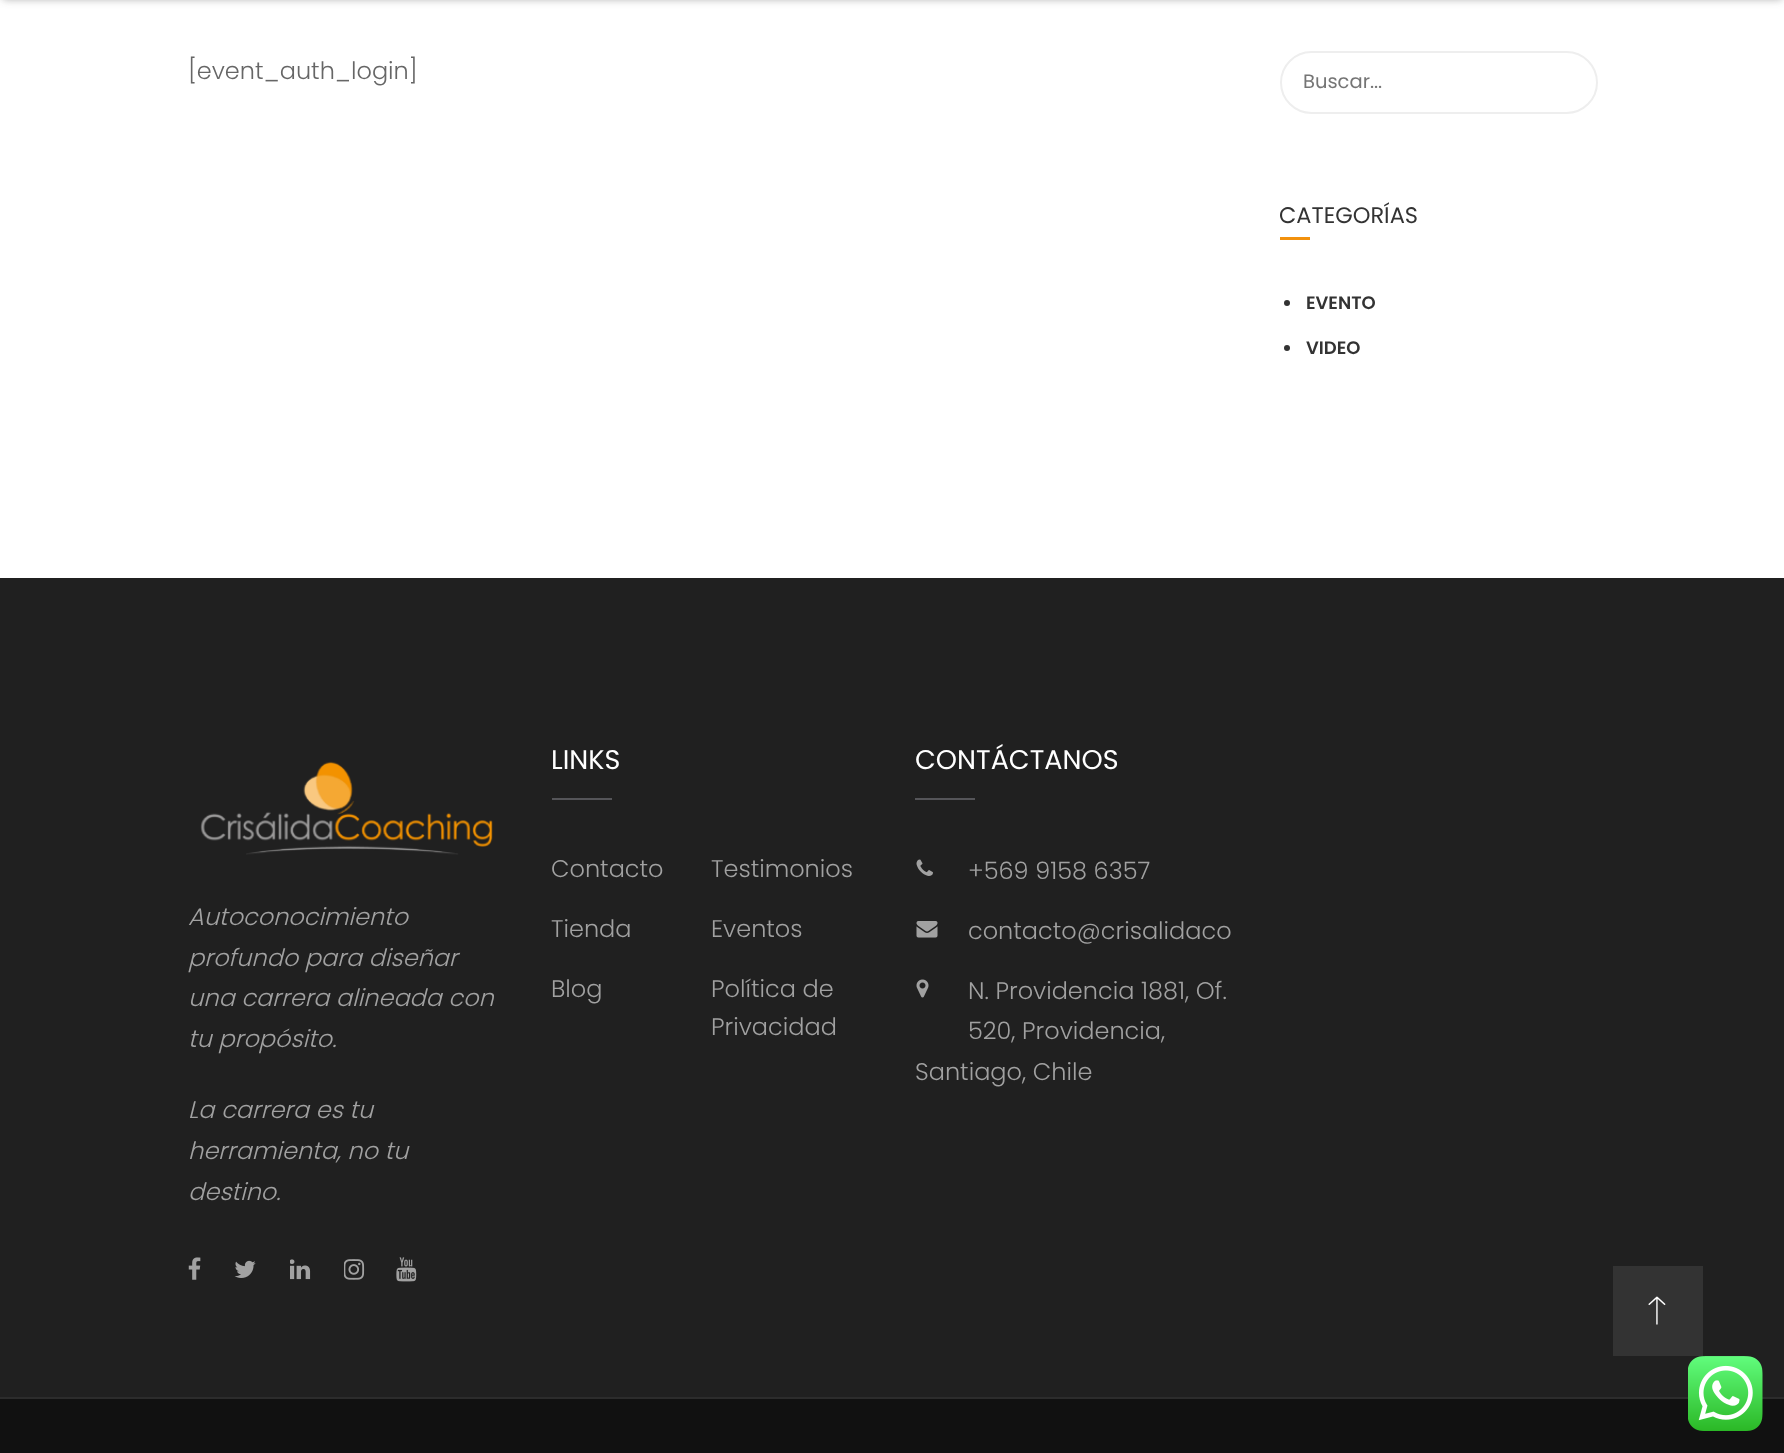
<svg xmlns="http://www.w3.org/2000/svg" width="1784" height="1453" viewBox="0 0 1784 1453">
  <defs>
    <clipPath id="clip1"><path d="M1280 189h318v192H1280z"/></clipPath>
  </defs>
  <rect width="100%" height="100%" fill="#fff"/>
  <path d="M3 -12h1779v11H3z" fill="#2a2a2a66" filter="blur(4px)"/>
  <rect x="1281" y="52" width="316" height="61" rx="30.5" fill="none" stroke="#eee" stroke-width="2"/>
  <path d="M1280 237h30v3H1280z" fill="#f2910d"/>
  <circle cx="1287" cy="303" r="3" fill="#333"/>
  <circle cx="1287" cy="348" r="3" fill="#333"/>
  <path d="M0 578h1784v819H0z" fill="#202020"/>
  <image x="200" y="761" width="293" height="94" href="img/1.png"/>
  <image x="188" y="1257" width="13" height="23" href="img/2.png"/>
  <image x="234" y="1260" width="22" height="18" href="img/3.png"/>
  <image x="290" y="1259" width="21" height="21" href="img/4.png"/>
  <image x="344" y="1259" width="21" height="21" href="img/5.png"/>
  <image x="396" y="1257" width="21" height="25" href="img/6.png"/>
  <path d="M552 798h60v2H552z" fill="#555559"/>
  <path d="M915 798h60v2H915z" fill="#555559"/>
  <image x="916" y="859" width="17" height="17" href="img/7.png"/>
  <image x="916" y="921" width="22" height="17" href="img/8.png"/>
  <image x="916" y="979" width="13" height="19" href="img/9.png"/>
  <path d="M0 1399h1784v54H0z" fill="#111"/>
  <path d="M0 1397h1784v2H0z" fill="#2c2c2c"/>
  <path d="M1613 1266h90v90H1613z" fill="#333"/>
  <image x="1648" y="1296" width="18" height="29" href="img/10.png"/>
  <image x="1688" y="1356" width="75" height="75" href="img/11.png"/>
  <text x="188" y="79" font-family="Poppins" font-size="24" font-weight="300" fill="#666">[event_auth_login]</text>
  <text x="1303" y="88" font-family="Poppins" font-size="19.5" fill="#757575">Buscar...</text>
  <g clip-path="url(#clip1)">
    <text x="1279" y="223" font-family="Poppins" font-size="22.5" fill="#333">CATEGORÍAS</text>
  </g>
  <g font-family="Poppins" font-size="18" font-weight="600" fill="#333">
    <text x="1306" y="309">EVENTO</text>
    <text x="1306" y="354">VIDEO</text>
  </g>
  <g font-family="Poppins" font-size="24" font-weight="300" font-style="italic" fill="#a1a1a1">
    <text x="188" y="925">Autoconocimiento</text>
    <text x="188" y="966">profundo para diseñar</text>
    <text x="188" y="1006">una carrera alineada con</text>
    <text x="188" y="1047">tu propósito.</text>
    <text x="188" y="1118">La carrera es tu</text>
    <text x="188" y="1159">herramienta, no tu</text>
    <text x="188" y="1200">destino.</text>
  </g>
  <text x="551" y="769" font-family="Poppins" font-size="27" fill="#fff">LINKS</text>
  <g font-family="Poppins" font-size="24" font-weight="300" fill="#a1a1a1">
    <text x="551" y="877">Contacto</text>
    <text x="711" y="877">Testimonios</text>
    <text x="551" y="937">Tienda</text>
    <text x="711" y="937">Eventos</text>
    <text x="551" y="997">Blog</text>
    <text x="711" y="997">Política de</text>
    <text x="711" y="1035">Privacidad</text>
  </g>
  <text x="915" y="769" font-family="Poppins" font-size="27" fill="#fff">CONTÁCTANOS</text>
  <g font-family="Poppins" font-size="24" font-weight="300" fill="#a1a1a1">
    <text x="968" y="879">+569 9158 6357</text>
    <text x="968" y="939">contacto@crisalidaco</text>
    <text x="968" y="999">N. Providencia 1881, Of.</text>
    <text x="968" y="1039">520, Providencia,</text>
    <text x="915" y="1080">Santiago, Chile</text>
  </g>
</svg>
